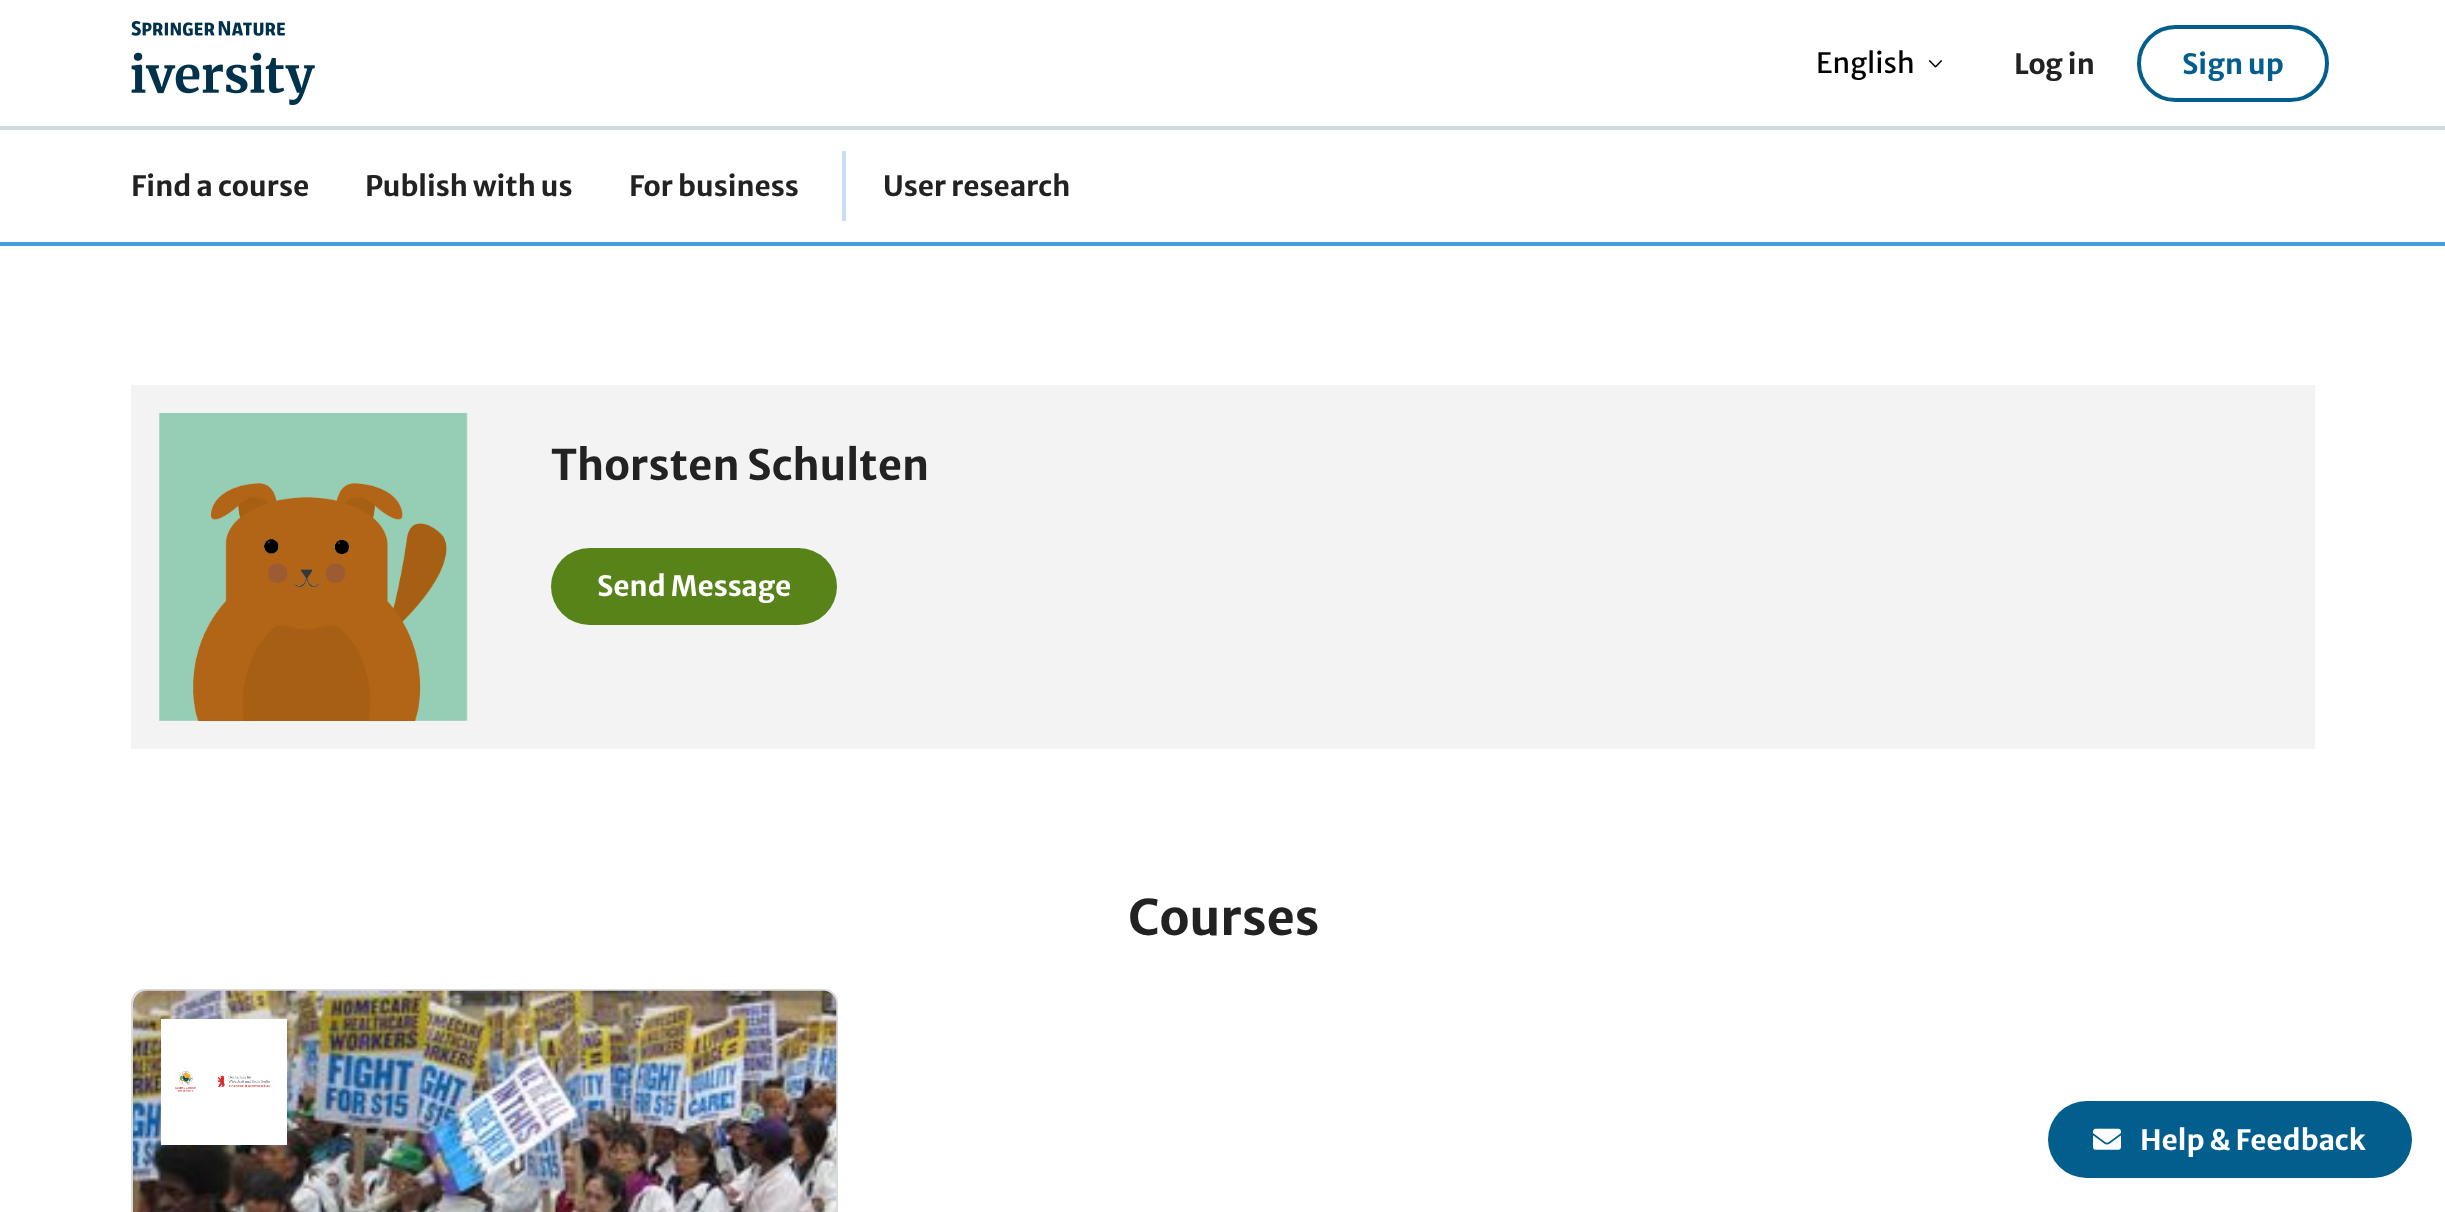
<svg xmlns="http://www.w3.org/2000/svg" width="2445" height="1212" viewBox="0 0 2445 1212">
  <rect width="100%" height="100%" fill="#fff"/>
  <path d="M0 242h2445v4H0z" fill="#449dd7"/>
  <image x="131" y="21" width="184" height="84" href="img/1.png"/>
  <image x="1929" y="60" width="13" height="8" href="img/2.png"/>
  <rect x="2139" y="27" width="188" height="73" rx="36.5" fill="none" stroke="#025e8d" stroke-width="4"/>
  <path d="M0 126h2445v4H0z" fill="#cedbe0"/>
  <path d="M842 151h4v70H842z" fill="#c5e0f4"/>
  <path d="M131 385h2184v364H131z" fill="#f3f3f3"/>
  <image x="159" y="413" width="309" height="308" href="img/3.png"/>
  <rect x="551" y="548" width="286" height="77" rx="38.5" fill="#578319"/>
  <rect x="132" y="990" width="705" height="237" rx="13" fill="none" stroke="#dadada" stroke-width="2"/>
  <image x="133" y="990" width="704" height="222" href="img/4.png"/>
  <path d="M161 1019h126v126H161z" fill="#fff"/>
  <image x="175" y="1071" width="96" height="21" href="img/5.png"/>
  <rect x="2048" y="1101" width="364" height="77" rx="38.5" fill="#025e8d"/>
  <image x="2093" y="1128" width="28" height="22" href="img/6.png"/>
  <text x="1816" y="73" font-family="Merriweather Sans" font-size="28" fill="#000">English</text>
  <text x="2014" y="74" font-family="Merriweather Sans" font-size="28" font-weight="bold" fill="#222">Log in</text>
  <text x="2182" y="74" font-family="Merriweather Sans" font-size="28" font-weight="bold" fill="#025e8d">Sign up</text>
  <g font-family="Merriweather Sans" font-size="28" font-weight="bold" fill="#222">
    <text x="131" y="196">Find a course</text>
    <text x="365" y="196">Publish with us</text>
    <text x="629" y="196">For business</text>
    <text x="883" y="196">User research</text>
  </g>
  <text x="551" y="480" font-family="Merriweather Sans" font-size="42" font-weight="bold" fill="#222">Thorsten Schulten</text>
  <text x="597" y="596" font-family="Merriweather Sans" font-size="28" font-weight="bold" fill="#fff">Send Message</text>
  <text x="1128" y="935" font-family="Merriweather Sans" font-size="49" font-weight="bold" fill="#222">Courses</text>
  <text x="2140" y="1150" font-family="Merriweather Sans" font-size="28" font-weight="bold" fill="#fff">Help &amp; Feedback</text>
</svg>
